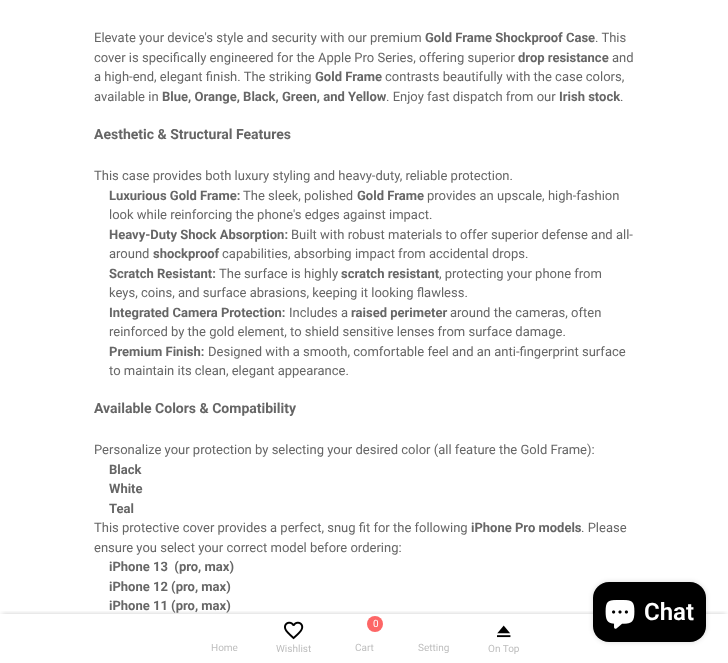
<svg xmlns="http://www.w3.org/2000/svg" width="728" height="663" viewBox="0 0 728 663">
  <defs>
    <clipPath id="clip1"><path d="M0 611h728v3H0z"/></clipPath>
  </defs>
  <rect width="100%" height="100%" fill="#fff"/>
  <rect x="593" y="582" width="113" height="60" rx="16" fill="#00000026" filter="blur(2.5px)"/>
  <g clip-path="url(#clip1)">
    <path d="M2 614h724v45H2z" fill="#00000033" filter="blur(2.5px)"/>
  </g>
  <rect x="593" y="582" width="113" height="60" rx="16" fill="#000"/>
  <image x="605" y="600" width="30" height="29" href="img/1.png"/>
  <image x="284" y="621" width="20" height="19" href="img/2.png"/>
  <circle cx="375" cy="624" r="8" fill="#fd6666"/>
  <image x="497" y="625" width="14" height="13" href="img/3.png"/>
  <text x="94" y="42" font-family="Roboto" font-size="13" fill="#666">Elevate your device's style and security with our premium</text>
  <text x="425" y="42" font-family="Roboto" font-size="13" font-weight="bold" fill="#666">Gold Frame Shockproof Case</text>
  <g font-family="Roboto" font-size="13" fill="#666">
    <text x="595" y="42">. This</text>
    <text x="94" y="62">cover is specifically engineered for the Apple Pro Series, offering superior</text>
  </g>
  <text x="518" y="62" font-family="Roboto" font-size="13" font-weight="bold" fill="#666">drop resistance</text>
  <g font-family="Roboto" font-size="13" fill="#666">
    <text x="612" y="62">and</text>
    <text x="94" y="81">a high-end, elegant finish. The striking</text>
  </g>
  <text x="315" y="81" font-family="Roboto" font-size="13" font-weight="bold" fill="#666">Gold Frame</text>
  <g font-family="Roboto" font-size="13" fill="#666">
    <text x="385" y="81">contrasts beautifully with the case colors,</text>
    <text x="94" y="101">available in</text>
  </g>
  <text x="162" y="101" font-family="Roboto" font-size="13" font-weight="bold" fill="#666">Blue, Orange, Black, Green, and Yellow</text>
  <text x="386" y="101" font-family="Roboto" font-size="13" fill="#666">. Enjoy fast dispatch from our</text>
  <text x="559" y="101" font-family="Roboto" font-size="13" font-weight="bold" fill="#666">Irish stock</text>
  <text x="620" y="101" font-family="Roboto" font-size="13" fill="#666">.</text>
  <text x="94" y="139" font-family="Roboto" font-size="14" font-weight="bold" fill="#666">Aesthetic &amp; Structural Features</text>
  <text x="94" y="180" font-family="Roboto" font-size="13" fill="#666">This case provides both luxury styling and heavy-duty, reliable protection.</text>
  <text x="109" y="200" font-family="Roboto" font-size="13" font-weight="bold" fill="#666">Luxurious Gold Frame:</text>
  <text x="243" y="200" font-family="Roboto" font-size="13" fill="#666">The sleek, polished</text>
  <text x="357" y="200" font-family="Roboto" font-size="13" font-weight="bold" fill="#666">Gold Frame</text>
  <g font-family="Roboto" font-size="13" fill="#666">
    <text x="427" y="200">provides an upscale, high-fashion</text>
    <text x="109" y="219">look while reinforcing the phone's edges against impact.</text>
  </g>
  <text x="109" y="239" font-family="Roboto" font-size="13" font-weight="bold" fill="#666">Heavy-Duty Shock Absorption:</text>
  <g font-family="Roboto" font-size="13" fill="#666">
    <text x="291" y="239">Built with robust materials to offer superior defense and all-</text>
    <text x="109" y="258">around</text>
  </g>
  <text x="153" y="258" font-family="Roboto" font-size="13" font-weight="bold" fill="#666">shockproof</text>
  <text x="222" y="258" font-family="Roboto" font-size="13" fill="#666">capabilities, absorbing impact from accidental drops.</text>
  <text x="109" y="278" font-family="Roboto" font-size="13" font-weight="bold" fill="#666">Scratch Resistant:</text>
  <text x="219" y="278" font-family="Roboto" font-size="13" fill="#666">The surface is highly</text>
  <text x="341" y="278" font-family="Roboto" font-size="13" font-weight="bold" fill="#666">scratch resistant</text>
  <g font-family="Roboto" font-size="13" fill="#666">
    <text x="439" y="278">, protecting your phone from</text>
    <text x="109" y="297">keys, coins, and surface abrasions, keeping it looking flawless.</text>
  </g>
  <text x="109" y="317" font-family="Roboto" font-size="13" font-weight="bold" fill="#666">Integrated Camera Protection:</text>
  <text x="289" y="317" font-family="Roboto" font-size="13" fill="#666">Includes a</text>
  <text x="351" y="317" font-family="Roboto" font-size="13" font-weight="bold" fill="#666">raised perimeter</text>
  <g font-family="Roboto" font-size="13" fill="#666">
    <text x="450" y="317">around the cameras, often</text>
    <text x="109" y="336">reinforced by the gold element, to shield sensitive lenses from surface damage.</text>
  </g>
  <text x="109" y="356" font-family="Roboto" font-size="13" font-weight="bold" fill="#666">Premium Finish:</text>
  <g font-family="Roboto" font-size="13" fill="#666">
    <text x="208" y="356">Designed with a smooth, comfortable feel and an anti-fingerprint surface</text>
    <text x="109" y="375">to maintain its clean, elegant appearance.</text>
  </g>
  <text x="94" y="413" font-family="Roboto" font-size="14" font-weight="bold" fill="#666">Available Colors &amp; Compatibility</text>
  <text x="94" y="454" font-family="Roboto" font-size="13" fill="#666">Personalize your protection by selecting your desired color (all feature the Gold Frame):</text>
  <g font-family="Roboto" font-size="13" font-weight="bold" fill="#666">
    <text x="109" y="474">Black</text>
    <text x="109" y="493">White</text>
    <text x="109" y="513">Teal</text>
  </g>
  <text x="94" y="532" font-family="Roboto" font-size="13" fill="#666">This protective cover provides a perfect, snug fit for the following</text>
  <text x="471" y="532" font-family="Roboto" font-size="13" font-weight="bold" fill="#666">iPhone Pro models</text>
  <g font-family="Roboto" font-size="13" fill="#666">
    <text x="581" y="532">. Please</text>
    <text x="94" y="552">ensure you select your correct model before ordering:</text>
  </g>
  <g font-family="Roboto" font-size="13" font-weight="bold" fill="#666">
    <text x="109" y="571" xml:space="preserve">iPhone 13  (pro, max)</text>
    <text x="109" y="591">iPhone 12 (pro, max)</text>
    <text x="109" y="610">iPhone 11 (pro, max)</text>
  </g>
  <text x="644" y="620" font-family="Roboto" font-size="24" font-weight="600" fill="#fff">Chat</text>
  <g font-family="Roboto" font-size="10" fill="#bebebe">
    <text x="211" y="651">Home</text>
    <text x="276" y="652">Wishlist</text>
  </g>
  <text x="373" y="627" font-family="Roboto" font-size="10" fill="#fff">0</text>
  <g font-family="Roboto" font-size="10" fill="#bebebe">
    <text x="355" y="651">Cart</text>
    <text x="418" y="651">Setting</text>
    <text x="488" y="652">On Top</text>
  </g>
</svg>
